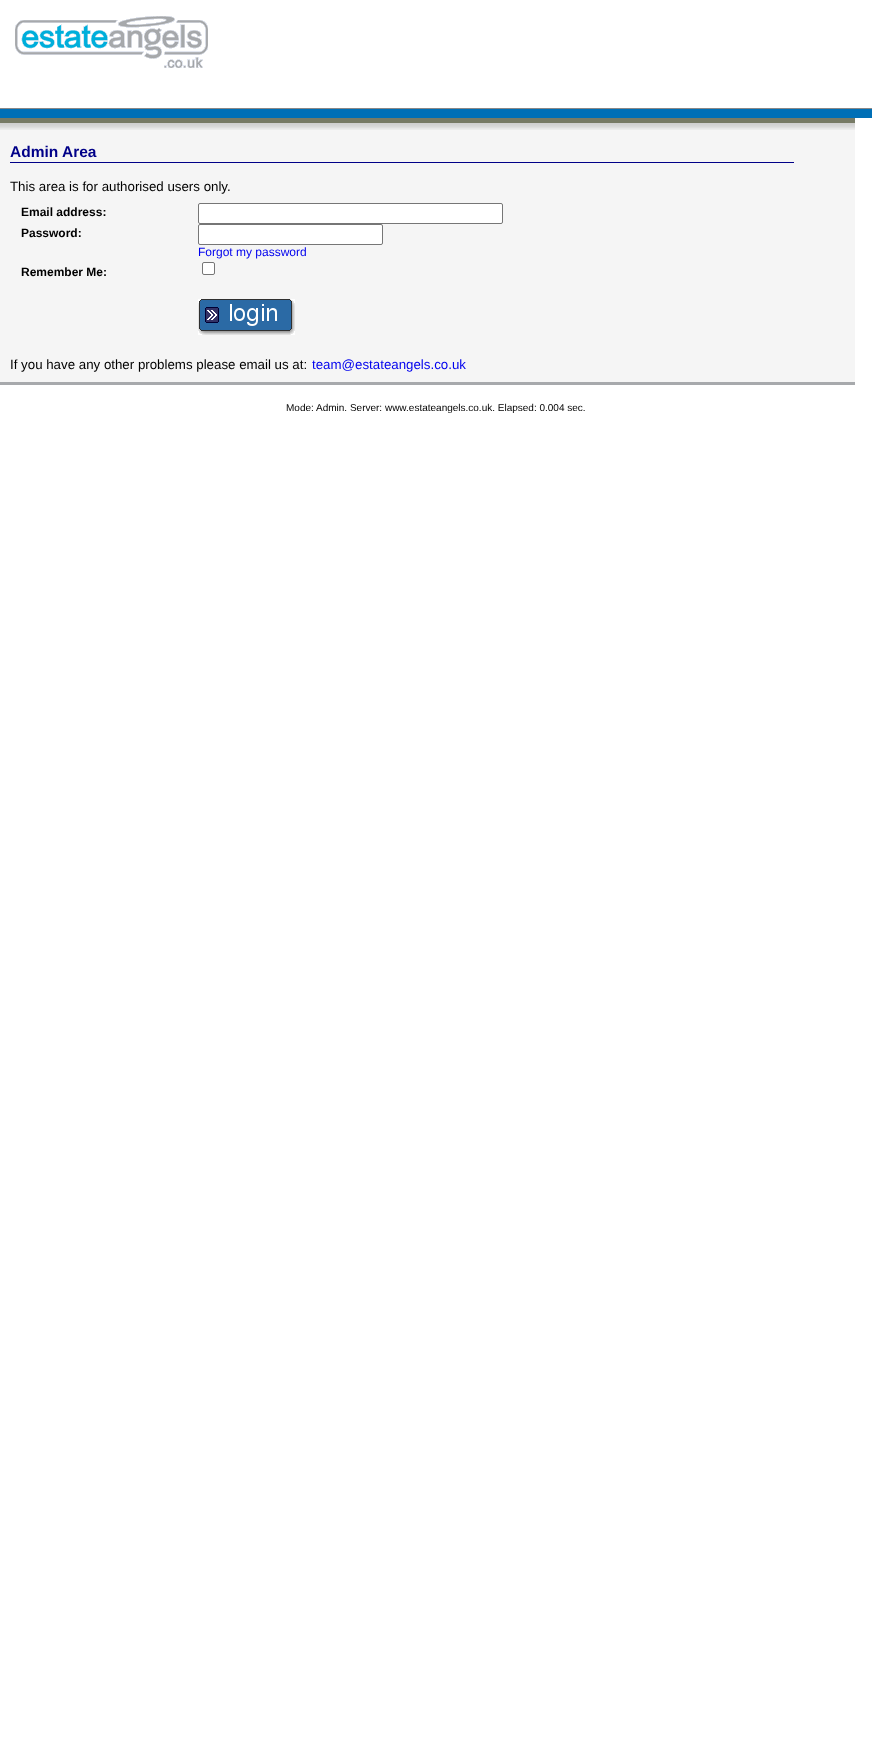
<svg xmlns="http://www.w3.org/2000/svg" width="872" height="1739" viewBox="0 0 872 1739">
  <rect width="100%" height="100%" fill="#fff"/>
  <image x="15" y="16" width="193" height="52" href="img/1.png"/>
  <path d="M0 108h872v1H0z" fill="#888"/>
  <path d="M0 109h872v9H0z" fill="#006fb6"/>
  <path d="M0 130h855v252H0z" fill="#f5f5f5"/>
  <image x="0" y="123" width="855" height="7" href="img/2.png"/>
  <path d="M0 118h855v5H0z" fill="#777a65"/>
  <path d="M0 382h855v3H0z" fill="#a7a9ac"/>
  <path d="M10 162h784v1H10z" fill="#008"/>
  <rect x="198.5" y="203.5" width="304" height="20" rx="1.5" fill="#fff" stroke="#767676"/>
  <rect x="198.5" y="224.5" width="184" height="20" rx="1.5" fill="#fff" stroke="#767676"/>
  <rect x="202.5" y="262.5" width="12" height="12" rx="1.5" fill="#fff" stroke="#767676"/>
  <image x="198" y="299" width="97" height="36" href="img/3.png"/>
  <text x="10" y="157" font-family="Liberation Sans" font-size="15.5" font-weight="bold" fill="#008">Admin Area</text>
  <text x="10" y="191" font-family="Liberation Sans" font-size="13.3" fill="#000">This area is for authorised users only.</text>
  <g font-family="Liberation Sans" font-size="12" font-weight="bold" fill="#000">
    <text x="21" y="216">Email address:</text>
    <text x="21" y="237">Password:</text>
  </g>
  <text x="198" y="256" font-family="Liberation Sans" font-size="12" fill="#00e">Forgot my password</text>
  <text x="21" y="276" font-family="Liberation Sans" font-size="12" font-weight="bold" fill="#000">Remember Me:</text>
  <text x="10" y="369" font-family="Liberation Sans" font-size="13.3" fill="#000">If you have any other problems please email us at:</text>
  <text x="312" y="369" font-family="Liberation Sans" font-size="13.3" fill="#00e">team@estateangels.co.uk</text>
  <text x="286" y="411" font-family="Liberation Sans" font-size="10" fill="#000">Mode: Admin. Server: www.estateangels.co.uk. Elapsed: 0.004 sec.</text>
</svg>
